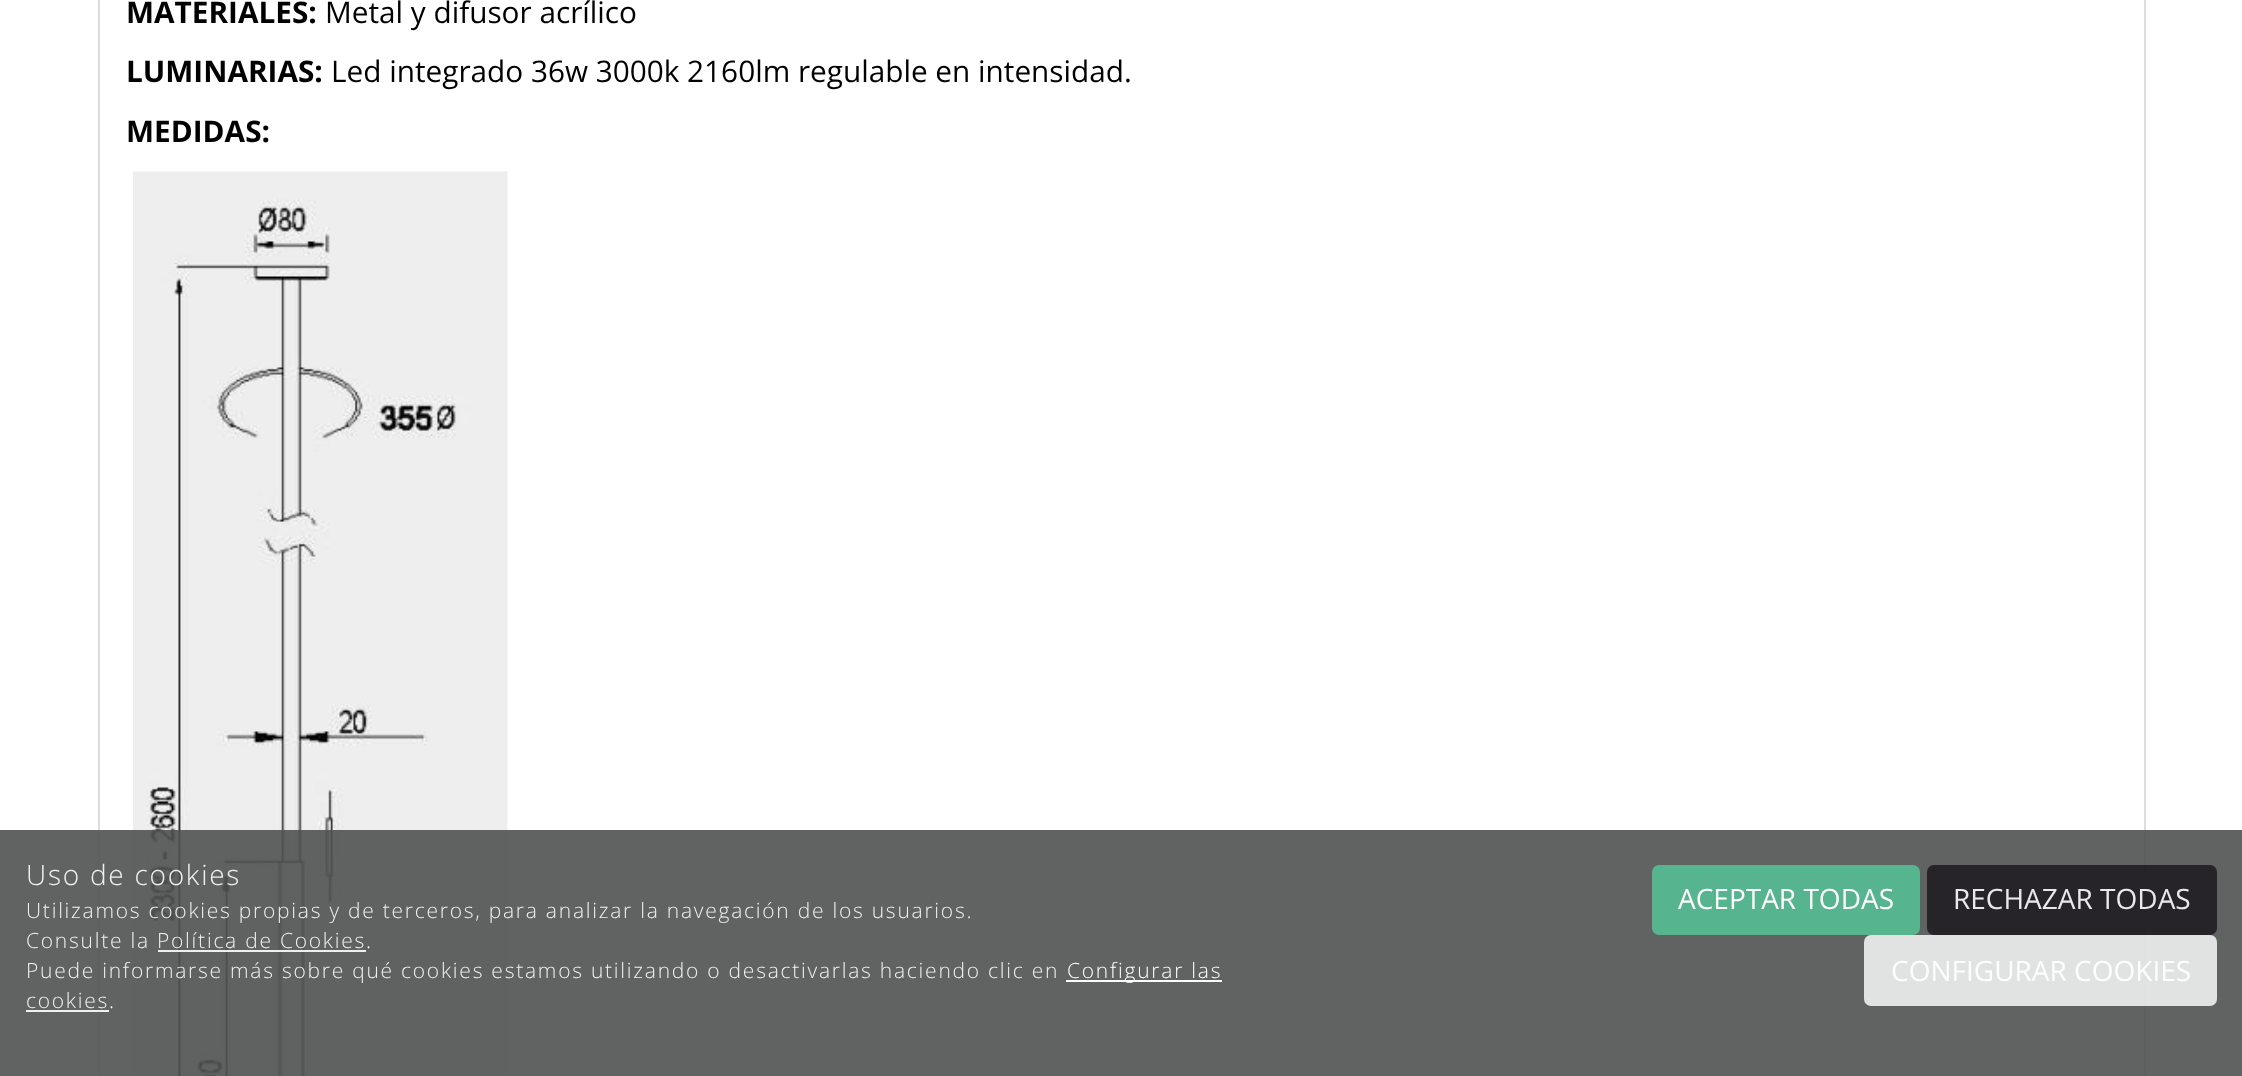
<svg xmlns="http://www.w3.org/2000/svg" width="2242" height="1076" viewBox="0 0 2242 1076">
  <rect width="100%" height="100%" fill="#fff"/>
  <path d="M98-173H2146V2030C2146 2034 2142 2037 2138 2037H105C101 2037 98 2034 98 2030ZM100-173H2144V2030C2144 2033 2141 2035 2138 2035H105C102 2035 100 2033 100 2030Z" fill="#ddd" fill-rule="evenodd"/>
  <image x="133" y="171" width="375" height="905" href="img/1.png"/>
  <path d="M0 830h2242v246H0z" fill="#505252e6"/>
  <path d="M158 950h208v2H158z" fill="#ffffffe6"/>
  <path d="M1066 980h156v2H1066z" fill="#fff"/>
  <path d="M26 1010h83v2H26z" fill="#ffffffe6"/>
  <rect x="1652" y="865" width="268" height="70" rx="7" fill="#56b48f"/>
  <rect x="1927" y="865" width="290" height="70" rx="7" fill="#201d21e6"/>
  <rect x="1864" y="935" width="353" height="71" rx="7" fill="#efefefe6"/>
  <text x="126" y="23" font-family="Open Sans" font-size="29.75" font-weight="bold" fill="#000">MATERIALES:</text>
  <text x="325" y="23" font-family="Open Sans" font-size="29.75" fill="#000">Metal y difusor acrílico</text>
  <text x="126" y="82" font-family="Open Sans" font-size="29.75" font-weight="bold" fill="#000">LUMINARIAS:</text>
  <text x="331" y="82" font-family="Open Sans" font-size="29.75" fill="#000">Led integrado 36w 3000k 2160lm regulable en intensidad.</text>
  <text x="126" y="142" font-family="Open Sans" font-size="29.75" font-weight="bold" fill="#000">MEDIDAS:</text>
  <text x="26" y="885" font-family="Open Sans" font-size="28" font-weight="300" letter-spacing="1.75" fill="#efefef">Uso de cookies</text>
  <g font-family="Open Sans" font-size="21" font-weight="300" letter-spacing="1.75" fill="#efefef">
    <text x="26" y="918">Utilizamos cookies propias y de terceros, para analizar la navegación de los usuarios.</text>
    <text x="26" y="948">Consulte la Política de Cookies</text>
  </g>
  <text x="366" y="948" font-family="Open Sans" font-size="21" font-weight="300" letter-spacing="1.75" fill="#fdfdfd">.</text>
  <text x="26" y="978" font-family="Open Sans" font-size="21" font-weight="300" letter-spacing="1.75" fill="#efefef">Puede informarse más sobre qué cookies estamos utilizando o desactivarlas haciendo clic en</text>
  <text x="1067" y="978" font-family="Open Sans" font-size="21" font-weight="300" letter-spacing="1.75" fill="#fdfdfd">Configurar las</text>
  <text x="26" y="1008" font-family="Open Sans" font-size="21" font-weight="300" letter-spacing="1.75" fill="#efefef">cookies</text>
  <text x="109" y="1008" font-family="Open Sans" font-size="21" font-weight="300" letter-spacing="1.75" fill="#fdfdfd">.</text>
  <text x="1678" y="909" font-family="Open Sans" font-size="28" fill="#fdfdfd">ACEPTAR TODAS</text>
  <text x="1953" y="909" font-family="Open Sans" font-size="28" fill="#e9e9e9">RECHAZAR TODAS</text>
  <text x="1891" y="981" font-family="Open Sans" font-size="28" fill="#fdfdfd">CONFIGURAR COOKIES</text>
</svg>
